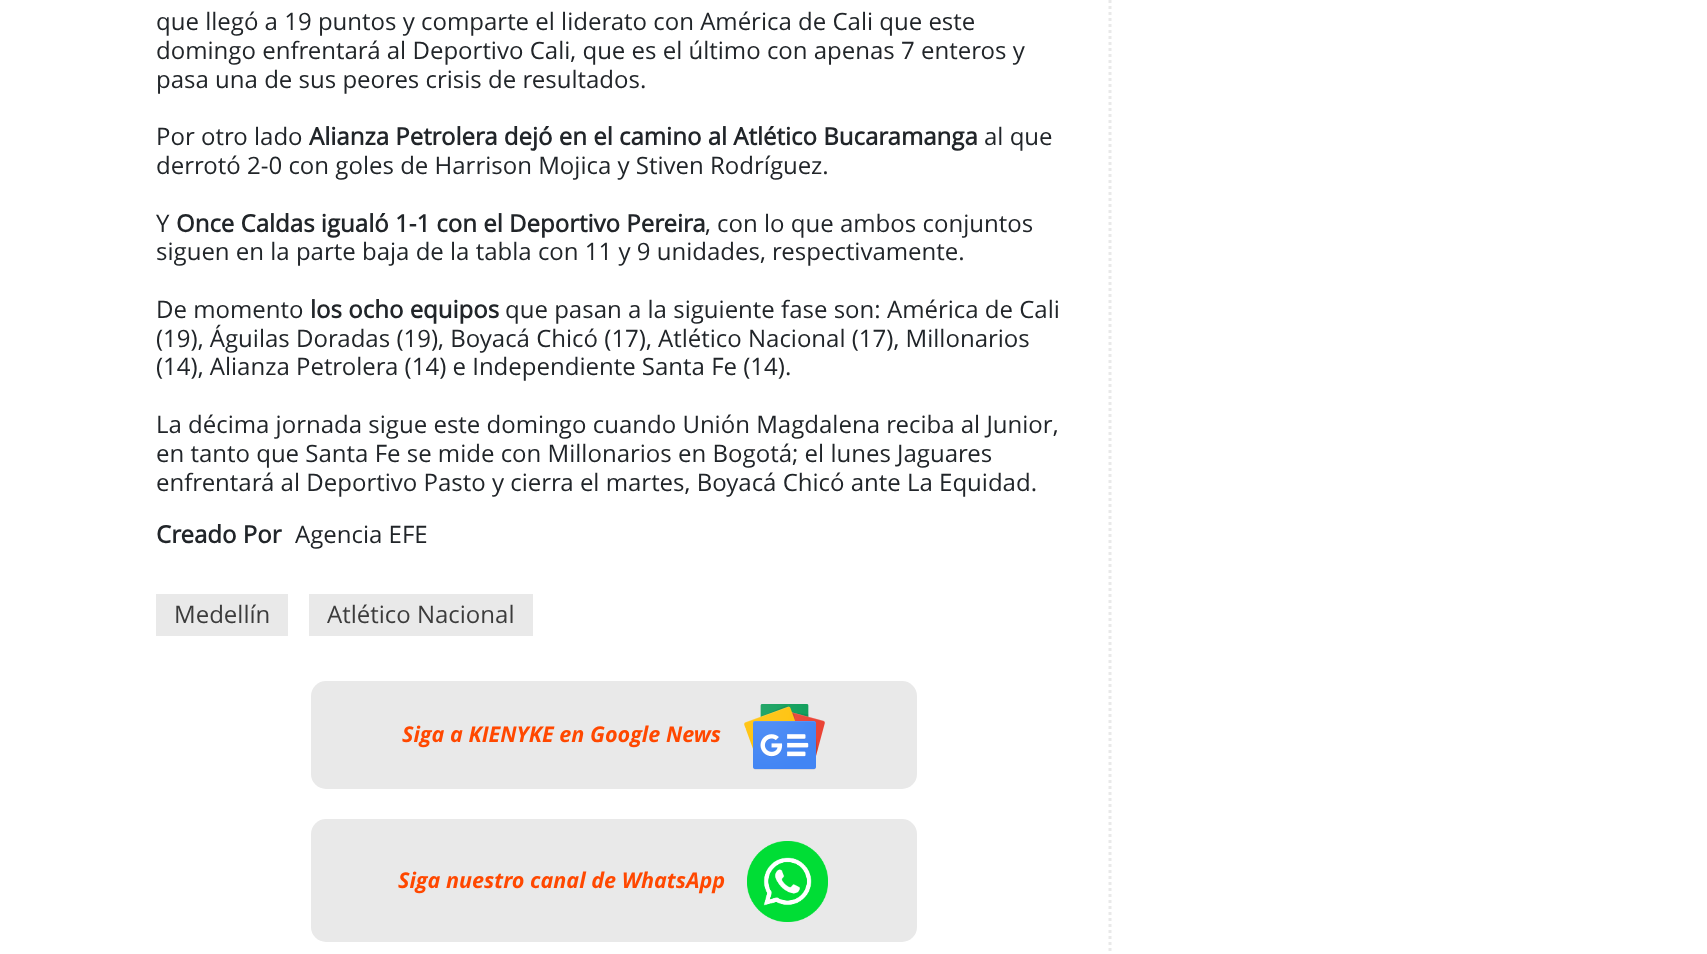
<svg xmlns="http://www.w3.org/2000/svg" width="1707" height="954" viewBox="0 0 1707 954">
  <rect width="100%" height="100%" fill="#fff"/>
  <path d="M156 594h132v42H156z" fill="#e9e9e9"/>
  <path d="M309 594h224v42H309z" fill="#e9e9e9"/>
  <rect x="311" y="681" width="606" height="108" rx="15" fill="#e9e9e9"/>
  <image x="744" y="704" width="81" height="66" href="img/1.png"/>
  <rect x="311" y="819" width="606" height="123" rx="15" fill="#e9e9e9"/>
  <image x="747" y="841" width="81" height="81" href="img/2.png"/>
  <path d="M1110-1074V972" fill="none" stroke="#e9e9e9" stroke-width="3" stroke-dasharray="3 3"/>
  <g font-family="Open Sans" font-size="24" fill="#212529">
    <text x="156" y="30">que llegó a 19 puntos y comparte el liderato con América de Cali que este</text>
    <text x="156" y="59">domingo enfrentará al Deportivo Cali, que es el último con apenas 7 enteros y</text>
    <text x="156" y="88">pasa una de sus peores crisis de resultados.</text>
    <text x="156" y="145">Por otro lado</text>
  </g>
  <text x="309" y="145" font-family="Open Sans" font-size="24" font-weight="bold" fill="#212529">Alianza Petrolera dejó en el camino al Atlético Bucaramanga</text>
  <g font-family="Open Sans" font-size="24" fill="#212529">
    <text x="984" y="145">al que</text>
    <text x="156" y="174">derrotó 2-0 con goles de Harrison Mojica y Stiven Rodríguez.</text>
    <text x="156" y="232">Y</text>
  </g>
  <text x="176" y="232" font-family="Open Sans" font-size="24" font-weight="bold" fill="#212529">Once Caldas igualó 1-1 con el Deportivo Pereira</text>
  <g font-family="Open Sans" font-size="24" fill="#212529">
    <text x="705" y="232">, con lo que ambos conjuntos</text>
    <text x="156" y="260">siguen en la parte baja de la tabla con 11 y 9 unidades, respectivamente.</text>
    <text x="156" y="318">De momento</text>
  </g>
  <text x="310" y="318" font-family="Open Sans" font-size="24" font-weight="bold" fill="#212529">los ocho equipos</text>
  <g font-family="Open Sans" font-size="24" fill="#212529">
    <text x="505" y="318">que pasan a la siguiente fase son: América de Cali</text>
    <text x="156" y="347">(19), Águilas Doradas (19), Boyacá Chicó (17), Atlético Nacional (17), Millonarios</text>
    <text x="156" y="375">(14), Alianza Petrolera (14) e Independiente Santa Fe (14).</text>
    <text x="156" y="433">La décima jornada sigue este domingo cuando Unión Magdalena reciba al Junior,</text>
    <text x="156" y="462">en tanto que Santa Fe se mide con Millonarios en Bogotá; el lunes Jaguares</text>
    <text x="156" y="491">enfrentará al Deportivo Pasto y cierra el martes, Boyacá Chicó ante La Equidad.</text>
  </g>
  <text x="156" y="543" font-family="Open Sans" font-size="24" font-weight="bold" fill="#212529">Creado Por</text>
  <text x="295" y="543" font-family="Open Sans" font-size="24" fill="#212529">Agencia EFE</text>
  <g font-family="Open Sans" font-size="24" fill="#3c3c3c">
    <text x="174" y="623">Medellín</text>
    <text x="327" y="623">Atlético Nacional</text>
  </g>
  <g font-family="Open Sans" font-size="21.6" font-weight="bold" font-style="italic" fill="#ff4800">
    <text x="402" y="742">Siga a KIENYKE en Google News</text>
    <text x="398" y="888">Siga nuestro canal de WhatsApp</text>
  </g>
</svg>
